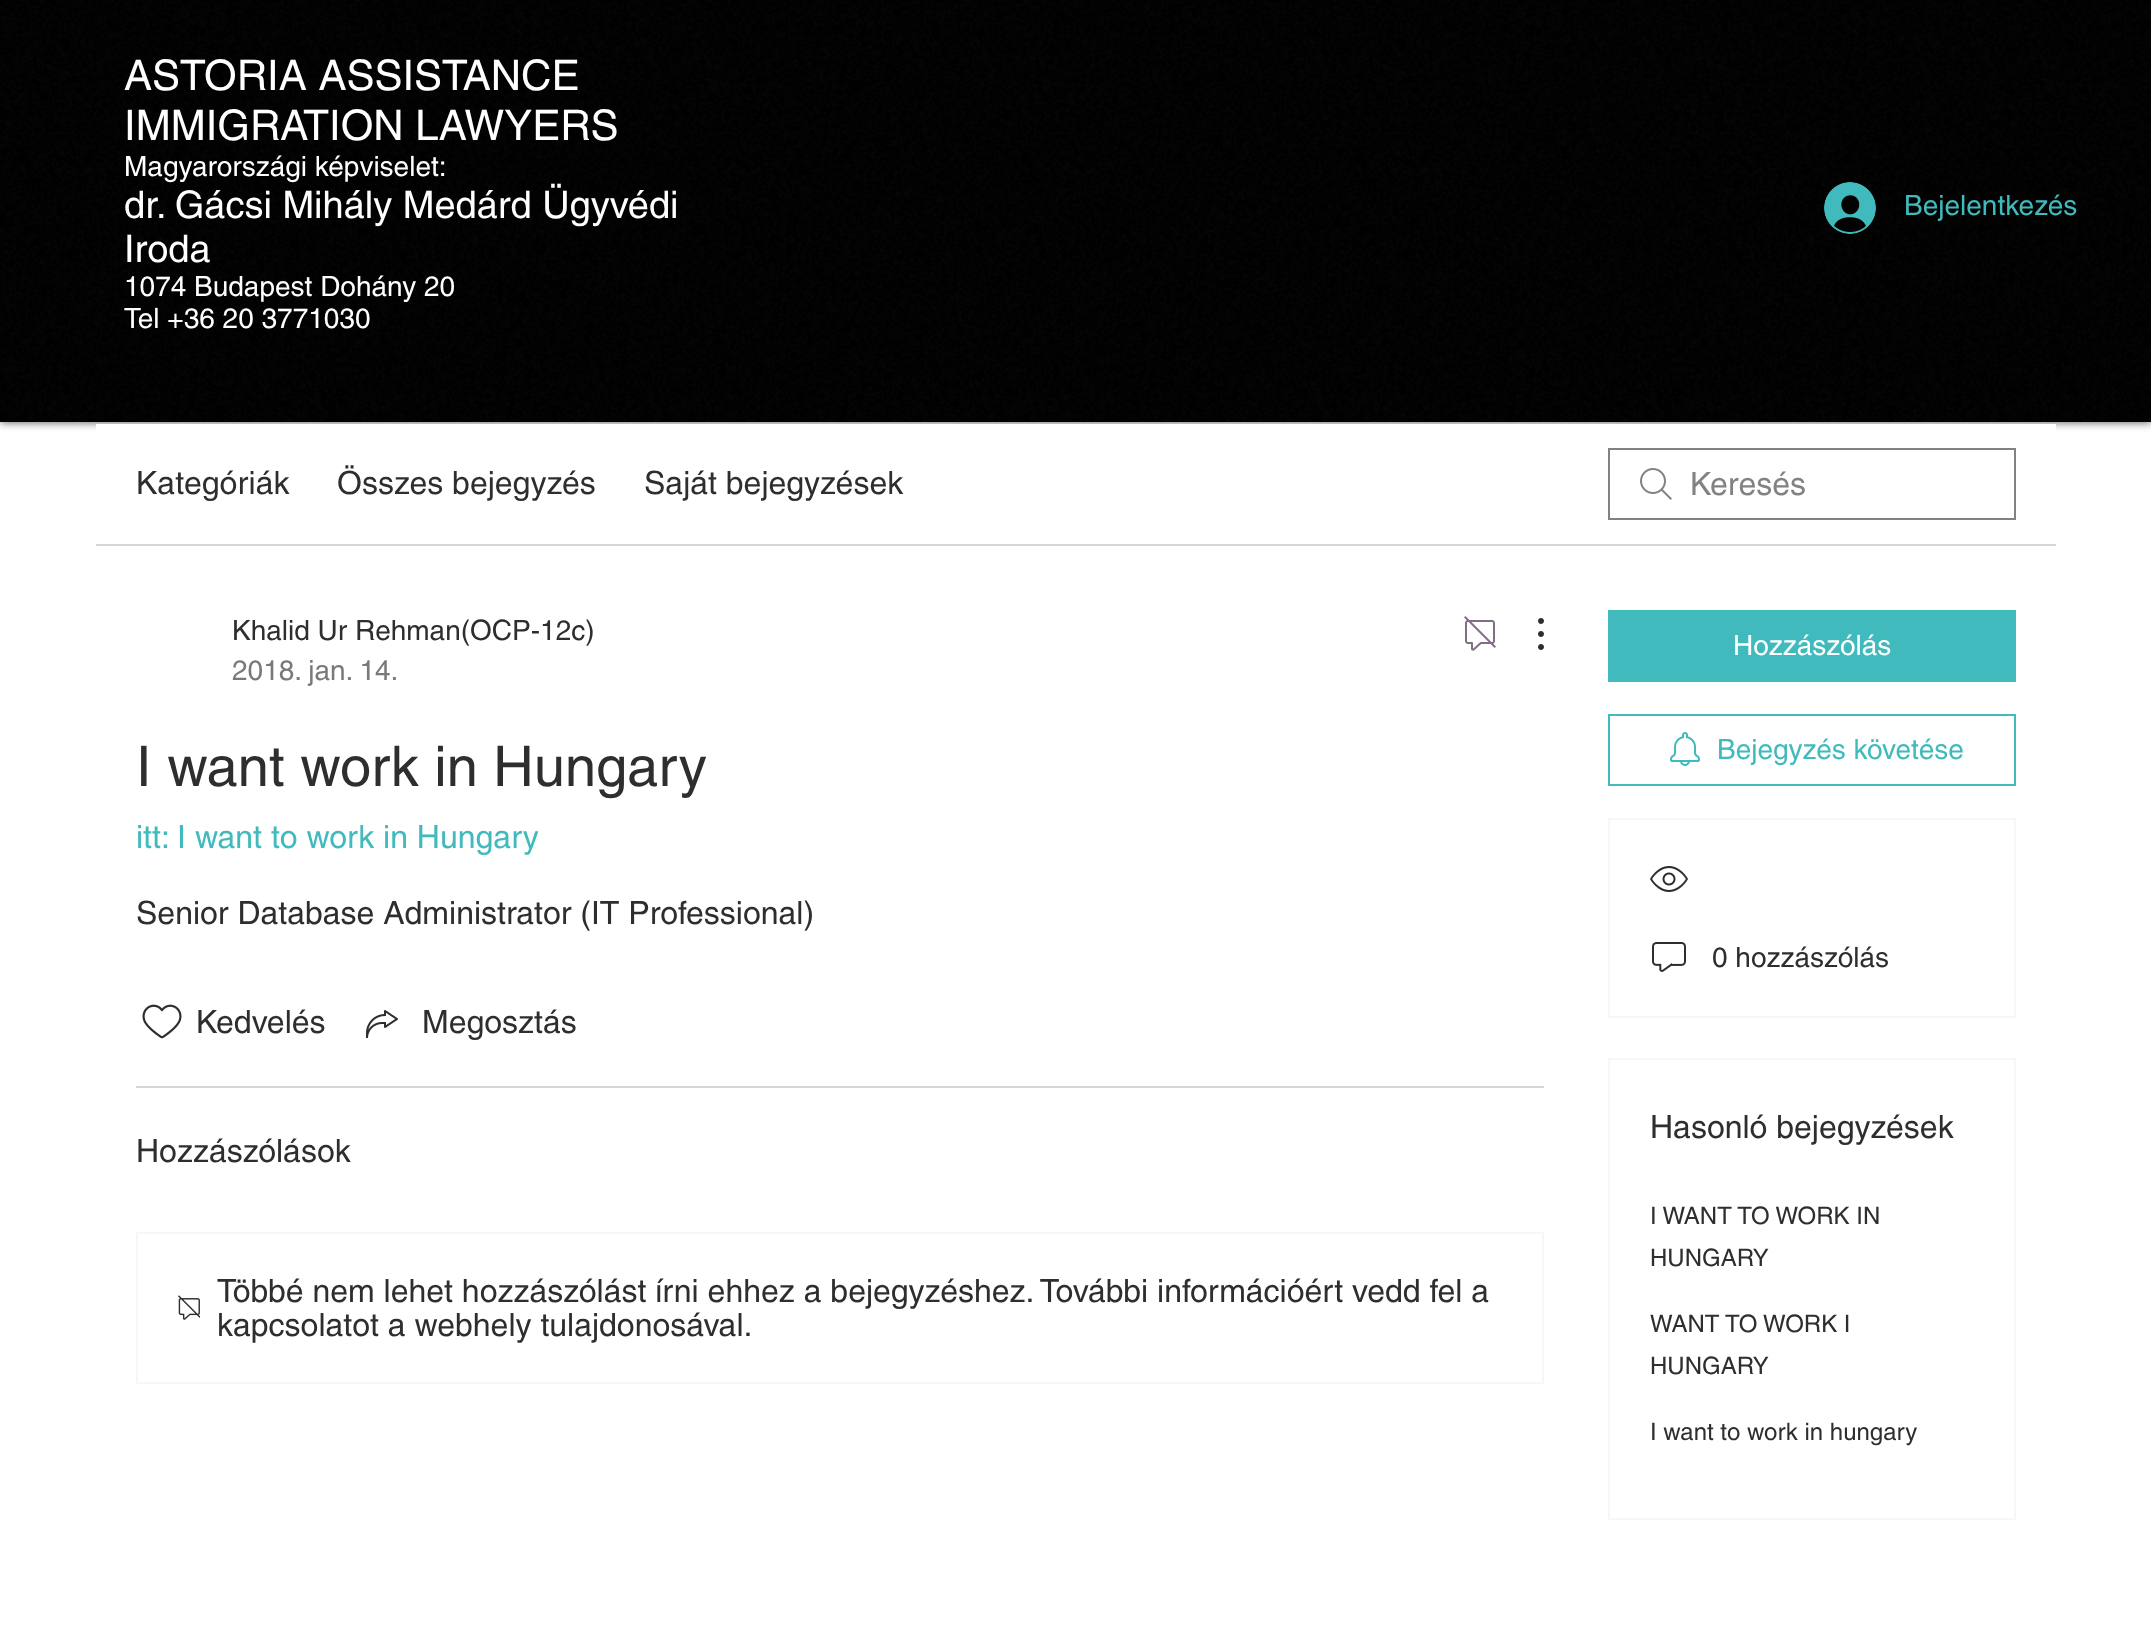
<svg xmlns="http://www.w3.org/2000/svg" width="2151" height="1643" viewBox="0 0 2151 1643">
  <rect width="100%" height="100%" fill="#fff"/>
  <path d="M0 0h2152v422H0z" fill="#000000b3" filter="blur(5px)"/>
  <path d="M0 0h2151v422H0z" fill="#000"/>
  <image x="0" y="0" width="2151" height="422" href="img/1.png"/>
  <image x="1824" y="182" width="52" height="52" href="img/2.png"/>
  <path d="M96 424h1960v9H96z" fill="#fff"/>
  <path d="M96 544h1960v2H96z" fill="#d5d5d5"/>
  <image x="1640" y="468" width="32" height="32" href="img/3.png"/>
  <path d="M1609 449h406v70H1609z" fill="none" stroke="#828282" stroke-width="2"/>
  <image x="1464" y="616" width="32" height="35" href="img/4.png"/>
  <image x="1538" y="618" width="6" height="32" href="img/5.png"/>
  <image x="142" y="1004" width="40" height="35" href="img/6.png"/>
  <image x="366" y="1010" width="32" height="28" href="img/7.png"/>
  <path d="M136 1086h1408v2H136z" fill="#d5d5d5"/>
  <path d="M137 1233h1406v150H137z" fill="none" stroke="#f7f7f7" stroke-width="2"/>
  <image x="178" y="1295" width="22" height="25" href="img/8.png"/>
  <path d="M1608 610h408v72H1608z" fill="#40babc"/>
  <path d="M1609 715h406v70H1609z" fill="none" stroke="#40babc" stroke-width="2"/>
  <image x="1670" y="732" width="30" height="34" href="img/9.png"/>
  <path d="M1609 819h406v198H1609z" fill="none" stroke="#f7f7f7" stroke-width="2"/>
  <image x="1650" y="866" width="38" height="26" href="img/10.png"/>
  <image x="1652" y="942" width="34" height="30" href="img/11.png"/>
  <path d="M1609 1059h406v460H1609z" fill="none" stroke="#f7f7f7" stroke-width="2"/>
  <g font-family="helvetica" font-size="42" fill="#fff">
    <text x="124" y="90">ASTORIA ASSISTANCE</text>
    <text x="124" y="140">IMMIGRATION LAWYERS</text>
  </g>
  <text x="124" y="176" font-family="helvetica" font-size="28" fill="#fff">Magyarországi képviselet:</text>
  <g font-family="helvetica" font-size="38" fill="#fff">
    <text x="124" y="218">dr. Gácsi Mihály Medárd Ügyvédi</text>
    <text x="124" y="262">Iroda</text>
  </g>
  <g font-family="helvetica" font-size="28" fill="#fff">
    <text x="124" y="296">1074 Budapest Dohány 20</text>
    <text x="124" y="328">Tel +36 20 3771030</text>
  </g>
  <text x="1904" y="215" font-family="helvetica" font-size="28" fill="#40babc">Bejelentkezés</text>
  <g font-family="helvetica" font-size="32" fill="#2e2e2e">
    <text x="136" y="494">Kategóriák</text>
    <text x="337" y="494">Összes bejegyzés</text>
    <text x="644" y="494">Saját bejegyzések</text>
  </g>
  <text x="1690" y="495" font-family="helvetica" font-size="32" fill="#828282">Keresés</text>
  <text x="232" y="640" font-family="helvetica" font-size="28" fill="#2e2e2e">Khalid Ur Rehman(OCP-12c)</text>
  <text x="232" y="680" font-family="helvetica" font-size="28" fill="#797979">2018. jan. 14.</text>
  <text x="136" y="786" font-family="helvetica" font-size="56" fill="#2e2e2e">I want work in Hungary</text>
  <text x="136" y="848" font-family="helvetica" font-size="32" fill="#40babc">itt: I want to work in Hungary</text>
  <g font-family="helvetica" font-size="32" fill="#2e2e2e">
    <text x="136" y="924">Senior Database Administrator (IT Professional)</text>
    <text x="196" y="1033">Kedvelés</text>
    <text x="422" y="1033">Megosztás</text>
    <text x="136" y="1162">Hozzászólások</text>
    <text x="217" y="1302">Többé nem lehet hozzászólást írni ehhez a bejegyzéshez. További információért vedd fel a</text>
    <text x="217" y="1336">kapcsolatot a webhely tulajdonosával.</text>
  </g>
  <text x="1733" y="655" font-family="helvetica" font-size="28" fill="#fff">Hozzászólás</text>
  <text x="1717" y="759" font-family="helvetica" font-size="28" fill="#40babc">Bejegyzés követése</text>
  <text x="1712" y="967" font-family="helvetica" font-size="28" fill="#2e2e2e">0 hozzászólás</text>
  <text x="1650" y="1138" font-family="helvetica" font-size="32" fill="#2e2e2e">Hasonló bejegyzések</text>
  <g font-family="helvetica" font-size="24" fill="#2e2e2e">
    <text x="1650" y="1224">I WANT TO WORK IN</text>
    <text x="1650" y="1266">HUNGARY</text>
    <text x="1650" y="1332">WANT TO WORK I</text>
    <text x="1650" y="1374">HUNGARY</text>
    <text x="1650" y="1440">I want to work in hungary</text>
  </g>
</svg>
